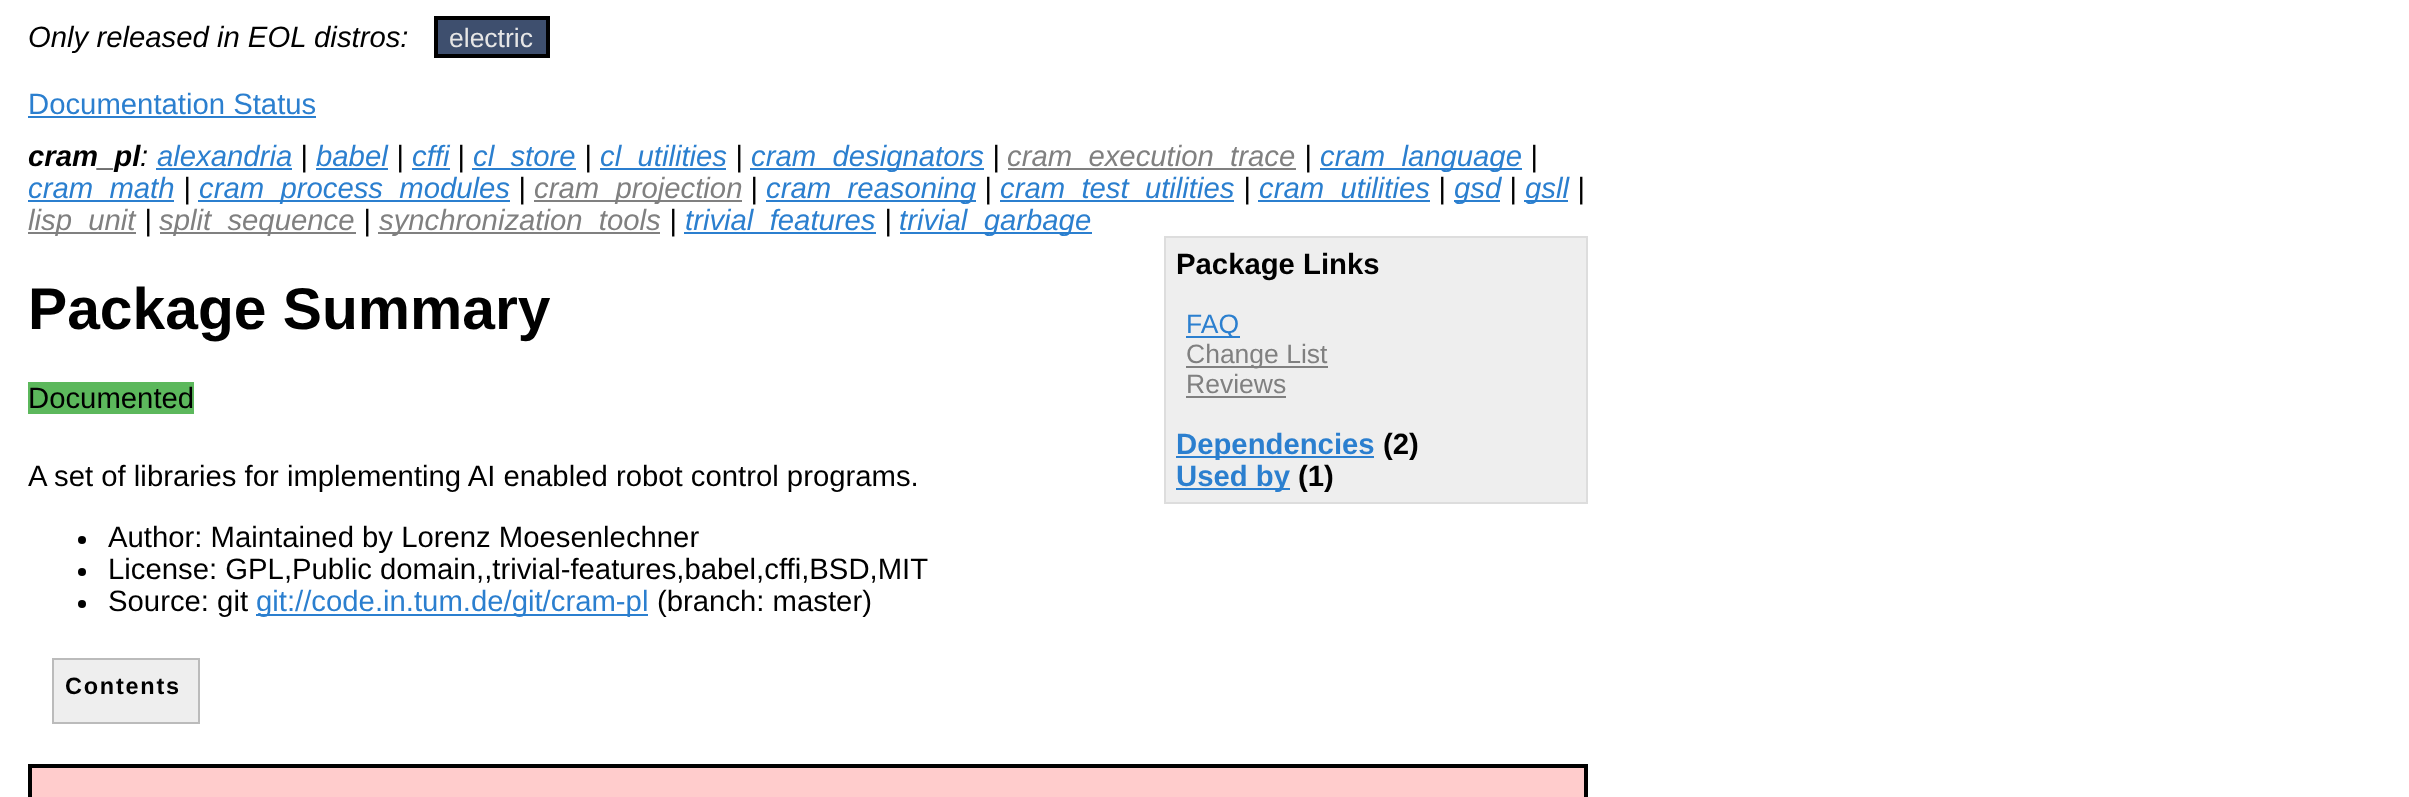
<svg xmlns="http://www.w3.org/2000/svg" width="2409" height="797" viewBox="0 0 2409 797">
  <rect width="100%" height="100%" fill="#fff"/>
  <path d="M436 18h112v38H436z" fill="#3e4f6e" stroke="#000" stroke-width="4"/>
  <path d="M28 116h288v2H28z" fill="#2b7fcf"/>
  <path d="M156 168h136v2H156z" fill="#2b7fcf"/>
  <path d="M316 168h72v2H316z" fill="#2b7fcf"/>
  <path d="M412 168h38v2H412z" fill="#2b7fcf"/>
  <path d="M472 168h104v2H472z" fill="#2b7fcf"/>
  <path d="M600 168h126v2H600z" fill="#2b7fcf"/>
  <path d="M750 168h234v2H750z" fill="#2b7fcf"/>
  <path d="M1008 168h288v2H1008z" fill="#808080"/>
  <path d="M1320 168h202v2H1320z" fill="#2b7fcf"/>
  <path d="M28 200h146v2H28z" fill="#2b7fcf"/>
  <path d="M198 200h312v2H198z" fill="#2b7fcf"/>
  <path d="M534 200h208v2H534z" fill="#808080"/>
  <path d="M766 200h210v2H766z" fill="#2b7fcf"/>
  <path d="M1000 200h234v2H1000z" fill="#2b7fcf"/>
  <path d="M1258 200h172v2H1258z" fill="#2b7fcf"/>
  <path d="M1454 200h46v2H1454z" fill="#2b7fcf"/>
  <path d="M1524 200h44v2H1524z" fill="#2b7fcf"/>
  <path d="M28 232h108v2H28z" fill="#808080"/>
  <path d="M160 232h196v2H160z" fill="#808080"/>
  <path d="M378 232h282v2H378z" fill="#808080"/>
  <path d="M684 232h192v2H684z" fill="#2b7fcf"/>
  <path d="M900 232h192v2H900z" fill="#2b7fcf"/>
  <path d="M1165 237h422v266H1165z" fill="#eee" stroke="#ddd" stroke-width="2"/>
  <path d="M1186 336h54v2H1186z" fill="#2b7fcf"/>
  <path d="M1186 366h142v2H1186z" fill="#808080"/>
  <path d="M1186 396h100v2H1186z" fill="#808080"/>
  <path d="M1176 456h198v2H1176z" fill="#2b7fcf"/>
  <path d="M1176 488h114v2H1176z" fill="#2b7fcf"/>
  <path d="M28 382h166v32H28z" fill="#5cb85c"/>
  <circle cx="82" cy="540" r="4" fill="#000"/>
  <circle cx="82" cy="572" r="4" fill="#000"/>
  <circle cx="82" cy="604" r="4" fill="#000"/>
  <path d="M256 614h392v2H256z" fill="#2b7fcf"/>
  <path d="M53 659h146v64H53z" fill="#eee" stroke="#bbb" stroke-width="2"/>
  <path d="M30 766h1556v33H30z" fill="#fcc" stroke="#000" stroke-width="4"/>
  <text x="28" y="47" font-family="Liberation Sans" font-size="29.3" font-style="italic" fill="#000">Only released in EOL distros:</text>
  <text x="449" y="47" font-family="Liberation Sans" font-size="26.5" fill="#e6e6e6">electric</text>
  <text x="28" y="114" font-family="Liberation Sans" font-size="29.3" fill="#2b7fcf">Documentation Status</text>
  <text x="28" y="166" font-family="Liberation Sans" font-size="29.3" font-weight="bold" font-style="italic" fill="#000">cram_pl</text>
  <text x="140" y="166" font-family="Liberation Sans" font-size="29.3" font-style="italic" fill="#000">:</text>
  <text x="157" y="166" font-family="Liberation Sans" font-size="29.3" font-style="italic" fill="#2b7fcf">alexandria</text>
  <text x="300" y="166" font-family="Liberation Sans" font-size="29.3" font-style="italic" fill="#000">|</text>
  <text x="316" y="166" font-family="Liberation Sans" font-size="29.3" font-style="italic" fill="#2b7fcf">babel</text>
  <text x="396" y="166" font-family="Liberation Sans" font-size="29.3" font-style="italic" fill="#000">|</text>
  <text x="412" y="166" font-family="Liberation Sans" font-size="29.3" font-style="italic" fill="#2b7fcf">cffi</text>
  <text x="457" y="166" font-family="Liberation Sans" font-size="29.3" font-style="italic" fill="#000">|</text>
  <text x="473" y="166" font-family="Liberation Sans" font-size="29.3" font-style="italic" fill="#2b7fcf">cl_store</text>
  <text x="584" y="166" font-family="Liberation Sans" font-size="29.3" font-style="italic" fill="#000">|</text>
  <text x="600" y="166" font-family="Liberation Sans" font-size="29.3" font-style="italic" fill="#2b7fcf">cl_utilities</text>
  <text x="735" y="166" font-family="Liberation Sans" font-size="29.3" font-style="italic" fill="#000">|</text>
  <text x="751" y="166" font-family="Liberation Sans" font-size="29.3" font-style="italic" fill="#2b7fcf">cram_designators</text>
  <text x="992" y="166" font-family="Liberation Sans" font-size="29.3" font-style="italic" fill="#000">|</text>
  <text x="1007" y="166" font-family="Liberation Sans" font-size="29.3" font-style="italic" fill="#808080">cram_execution_trace</text>
  <text x="1304" y="166" font-family="Liberation Sans" font-size="29.3" font-style="italic" fill="#000">|</text>
  <text x="1320" y="166" font-family="Liberation Sans" font-size="29.3" font-style="italic" fill="#2b7fcf">cram_language</text>
  <text x="1530" y="166" font-family="Liberation Sans" font-size="29.3" font-style="italic" fill="#000">|</text>
  <text x="28" y="198" font-family="Liberation Sans" font-size="29.3" font-style="italic" fill="#2b7fcf">cram_math</text>
  <text x="183" y="198" font-family="Liberation Sans" font-size="29.3" font-style="italic" fill="#000">|</text>
  <text x="199" y="198" font-family="Liberation Sans" font-size="29.3" font-style="italic" fill="#2b7fcf">cram_process_modules</text>
  <text x="518" y="198" font-family="Liberation Sans" font-size="29.3" font-style="italic" fill="#000">|</text>
  <text x="534" y="198" font-family="Liberation Sans" font-size="29.3" font-style="italic" fill="#808080">cram_projection</text>
  <text x="750" y="198" font-family="Liberation Sans" font-size="29.3" font-style="italic" fill="#000">|</text>
  <text x="766" y="198" font-family="Liberation Sans" font-size="29.3" font-style="italic" fill="#2b7fcf">cram_reasoning</text>
  <text x="984" y="198" font-family="Liberation Sans" font-size="29.3" font-style="italic" fill="#000">|</text>
  <text x="1000" y="198" font-family="Liberation Sans" font-size="29.3" font-style="italic" fill="#2b7fcf">cram_test_utilities</text>
  <text x="1243" y="198" font-family="Liberation Sans" font-size="29.3" font-style="italic" fill="#000">|</text>
  <text x="1259" y="198" font-family="Liberation Sans" font-size="29.3" font-style="italic" fill="#2b7fcf">cram_utilities</text>
  <text x="1438" y="198" font-family="Liberation Sans" font-size="29.3" font-style="italic" fill="#000">|</text>
  <text x="1454" y="198" font-family="Liberation Sans" font-size="29.3" font-style="italic" fill="#2b7fcf">gsd</text>
  <text x="1509" y="198" font-family="Liberation Sans" font-size="29.3" font-style="italic" fill="#000">|</text>
  <text x="1525" y="198" font-family="Liberation Sans" font-size="29.3" font-style="italic" fill="#2b7fcf">gsll</text>
  <text x="1577" y="198" font-family="Liberation Sans" font-size="29.3" font-style="italic" fill="#000">|</text>
  <text x="28" y="230" font-family="Liberation Sans" font-size="29.3" font-style="italic" fill="#808080">lisp_unit</text>
  <text x="144" y="230" font-family="Liberation Sans" font-size="29.3" font-style="italic" fill="#000">|</text>
  <text x="159" y="230" font-family="Liberation Sans" font-size="29.3" font-style="italic" fill="#808080">split_sequence</text>
  <text x="363" y="230" font-family="Liberation Sans" font-size="29.3" font-style="italic" fill="#000">|</text>
  <text x="379" y="230" font-family="Liberation Sans" font-size="29.3" font-style="italic" fill="#808080">synchronization_tools</text>
  <text x="669" y="230" font-family="Liberation Sans" font-size="29.3" font-style="italic" fill="#000">|</text>
  <text x="685" y="230" font-family="Liberation Sans" font-size="29.3" font-style="italic" fill="#2b7fcf">trivial_features</text>
  <text x="884" y="230" font-family="Liberation Sans" font-size="29.3" font-style="italic" fill="#000">|</text>
  <text x="899" y="230" font-family="Liberation Sans" font-size="29.3" font-style="italic" fill="#2b7fcf">trivial_garbage</text>
  <text x="28" y="329" font-family="Liberation Sans" font-size="58.75" font-weight="bold" fill="#000">Package Summary</text>
  <text x="1176" y="274" font-family="Liberation Sans" font-size="29.3" font-weight="bold" fill="#000">Package Links</text>
  <text x="1186" y="333" font-family="Liberation Sans" font-size="26.5" fill="#2b7fcf">FAQ</text>
  <g font-family="Liberation Sans" font-size="26.5" fill="#808080">
    <text x="1186" y="363">Change List</text>
    <text x="1186" y="393">Reviews</text>
  </g>
  <text x="1176" y="454" font-family="Liberation Sans" font-size="29.3" font-weight="bold" fill="#2b7fcf">Dependencies</text>
  <text x="1383" y="454" font-family="Liberation Sans" font-size="29.3" font-weight="bold" fill="#000">(2)</text>
  <text x="1176" y="486" font-family="Liberation Sans" font-size="29.3" font-weight="bold" fill="#2b7fcf">Used by</text>
  <text x="1298" y="486" font-family="Liberation Sans" font-size="29.3" font-weight="bold" fill="#000">(1)</text>
  <g font-family="Liberation Sans" font-size="29.3" fill="#000">
    <text x="28" y="408">Documented</text>
    <text x="28" y="486">A set of libraries for implementing AI enabled robot control programs.</text>
    <text x="108" y="547">Author: Maintained by Lorenz Moesenlechner</text>
    <text x="108" y="579">License: GPL,Public domain,,trivial-features,babel,cffi,BSD,MIT</text>
    <text x="108" y="611">Source: git</text>
  </g>
  <text x="256" y="611" font-family="Liberation Sans" font-size="29.3" fill="#2b7fcf">git://code.in.tum.de/git/cram-pl</text>
  <text x="657" y="611" font-family="Liberation Sans" font-size="29.3" fill="#000">(branch: master)</text>
  <text x="65" y="694" font-family="Liberation Sans" font-size="23.5" font-weight="bold" letter-spacing="1.75" fill="#000">Contents</text>
</svg>
